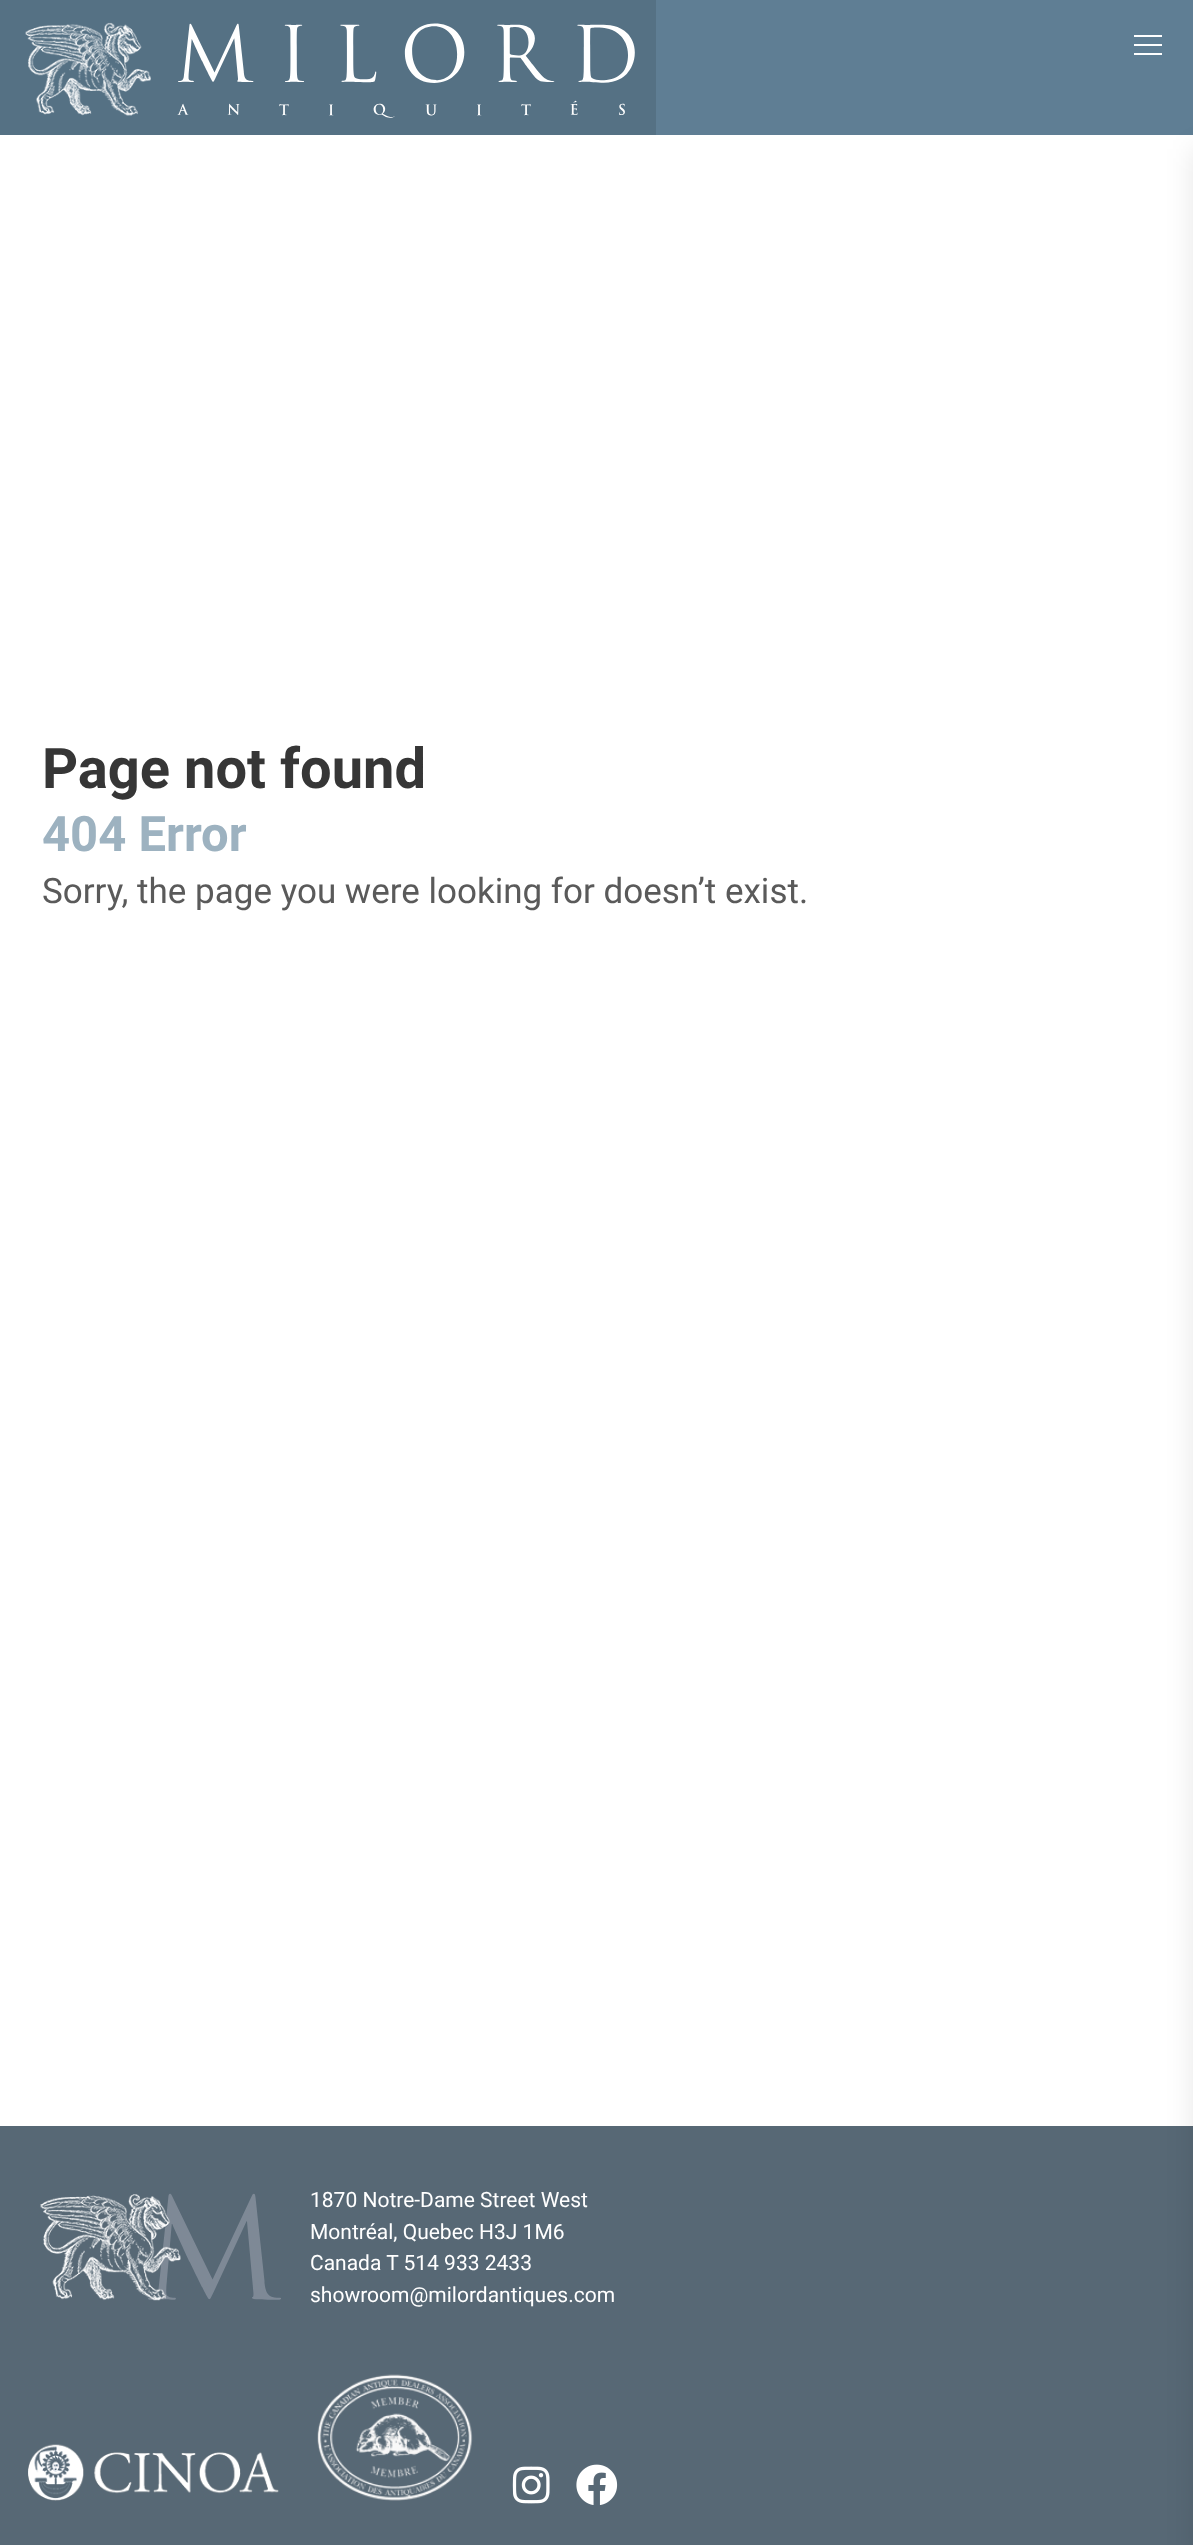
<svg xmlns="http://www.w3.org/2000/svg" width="1193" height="2545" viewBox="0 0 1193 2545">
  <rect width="100%" height="100%" fill="#fff"/>
  <path d="M656 0h537v135H656z" fill="#5f7e94"/>
  <path d="M0 0h656v135H0z" fill="#557184"/>
  <image x="25" y="22" width="610" height="96" href="img/1.png"/>
  <path d="M1134 35h28v2H1134z" fill="#fff"/>
  <path d="M1134 44h28v2H1134z" fill="#fff"/>
  <path d="M1134 53h28v2H1134z" fill="#fff"/>
  <path d="M0 2126h1193v419H0z" fill="#576875"/>
  <path d="M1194 149h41v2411H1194z" fill="#0a0a0a1a" filter="blur(14px)"/>
  <image x="40" y="2193" width="241" height="108" href="img/2.png"/>
  <image x="28" y="2444" width="251" height="57" href="img/3.png"/>
  <image x="317" y="2374" width="156" height="127" href="img/4.png"/>
  <image x="512" y="2466" width="38" height="38" href="img/5.png"/>
  <image x="576" y="2464" width="42" height="41" href="img/6.png"/>
  <text x="42" y="788" font-family="Roboto" font-size="56" font-weight="bold" fill="#363636">Page not found</text>
  <text x="42" y="851" font-family="Roboto" font-size="49" font-weight="bold" fill="#9db2c0">404 Error</text>
  <text x="42" y="903" font-family="Roboto" font-size="35" fill="#5a5a5a">Sorry, the page you were looking for doesn’t exist.</text>
  <g font-family="Roboto" font-size="21" fill="#fff">
    <text x="310" y="2207">1870 Notre-Dame Street West</text>
    <text x="310" y="2239">Montréal, Quebec H3J 1M6</text>
    <text x="310" y="2270">Canada T 514 933 2433</text>
    <text x="310" y="2302">showroom@milordantiques.com</text>
  </g>
</svg>
